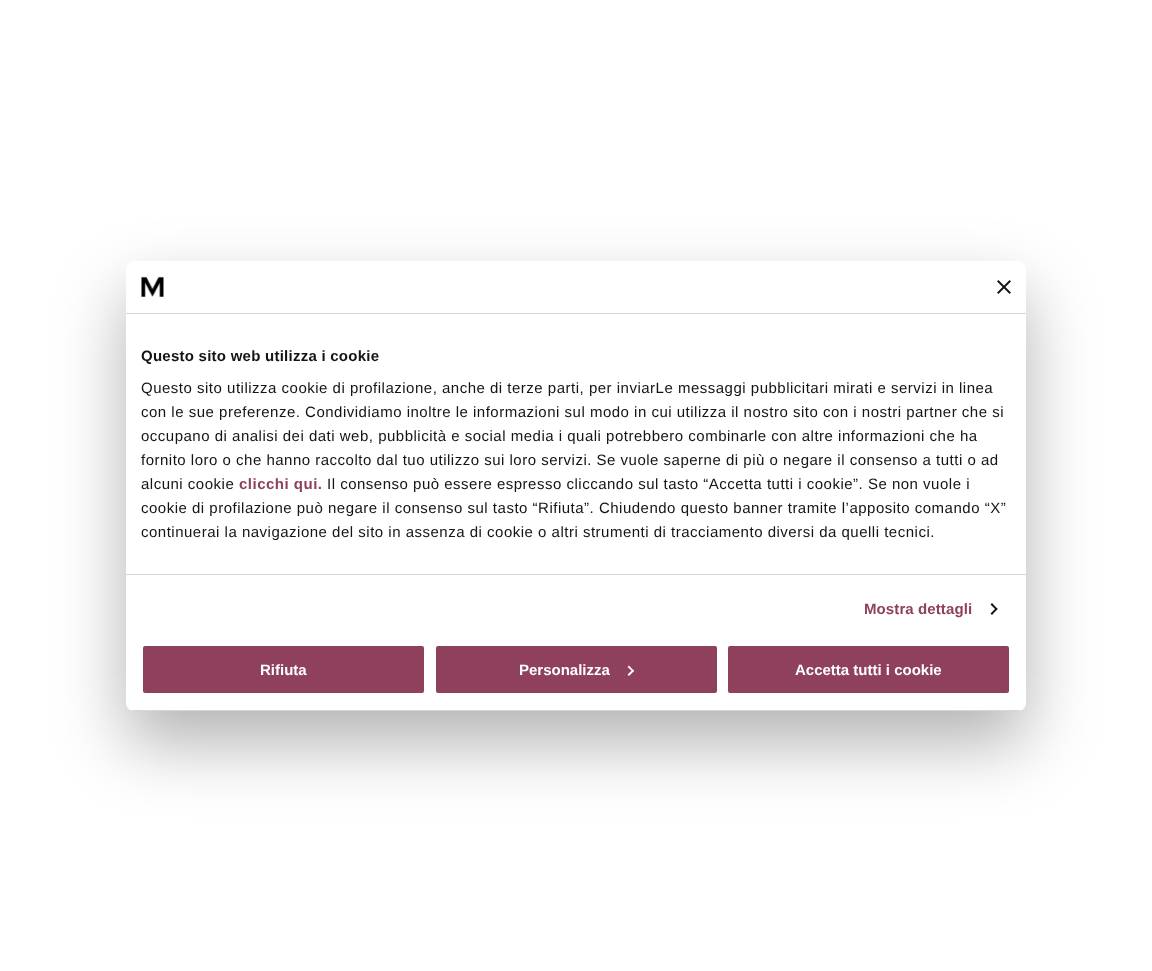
<svg xmlns="http://www.w3.org/2000/svg" width="1152" height="971" viewBox="0 0 1152 971">
  <defs>
    <clipPath id="clip1"><rect x="126" y="261" width="900" height="450" rx="8"/></clipPath>
  </defs>
  <rect width="100%" height="100%" fill="#fff"/>
  <rect x="126" y="293" width="900" height="450" rx="8" fill="#0000004d" filter="blur(34px)"/>
  <rect x="126" y="261" width="900" height="450" rx="8" fill="#fff"/>
  <path d="M126 313h900v1H126z" fill="#d6d6d6"/>
  <image x="141" y="276" width="23" height="21" href="img/1.png"/>
  <image x="997" y="280" width="14" height="14" href="img/2.png"/>
  <path d="M126 574h900v1H126z" fill="#d6d6d6"/>
  <path d="M992 603L997.5 609L996.5 610.5L990.5 604.5Z" fill="#141414"/>
  <path d="M996.5 607.5L997.5 609L992 615L990.5 613.5Z" fill="#141414"/>
  <g clip-path="url(#clip1)">
    <path d="M126 710h900v1H126z" fill="#d6d6d6"/>
  </g>
  <rect x="142" y="645" width="283" height="49" rx="3" fill="#8f405d" stroke="#fff" stroke-width="2"/>
  <rect x="435" y="645" width="283" height="49" rx="3" fill="#8f405d" stroke="#fff" stroke-width="2"/>
  <path d="M629 665.5L634 671L633 672L627.5 667Z" fill="#fff"/>
  <path d="M633 669.5L634 671L629 676L627.5 674.5Z" fill="#fff"/>
  <rect x="727" y="645" width="283" height="49" rx="3" fill="#8f405d" stroke="#fff" stroke-width="2"/>
  <text x="141" y="361" font-family="Liberation Sans" font-size="15" font-weight="bold" letter-spacing="0.25" fill="#141414">Questo sito web utilizza i cookie</text>
  <g font-family="Liberation Sans" font-size="15" letter-spacing="0.5" fill="#141414">
    <text x="141" y="393">Questo sito utilizza cookie di profilazione, anche di terze parti, per inviarLe messaggi pubblicitari mirati e servizi in linea</text>
    <text x="141" y="417">con le sue preferenze. Condividiamo inoltre le informazioni sul modo in cui utilizza il nostro sito con i nostri partner che si</text>
    <text x="141" y="441">occupano di analisi dei dati web, pubblicità e social media i quali potrebbero combinarle con altre informazioni che ha</text>
    <text x="141" y="465">fornito loro o che hanno raccolto dal tuo utilizzo sui loro servizi. Se vuole saperne di più o negare il consenso a tutti o ad</text>
    <text x="141" y="489">alcuni cookie</text>
  </g>
  <text x="239" y="489" font-family="Liberation Sans" font-size="15" font-weight="bold" letter-spacing="0.5" fill="#8f405d">clicchi qui.</text>
  <g font-family="Liberation Sans" font-size="15" letter-spacing="0.5" fill="#141414">
    <text x="327" y="489">Il consenso può essere espresso cliccando sul tasto “Accetta tutti i cookie”. Se non vuole i</text>
    <text x="141" y="513">cookie di profilazione può negare il consenso sul tasto “Rifiuta”. Chiudendo questo banner tramite l’apposito comando “X”</text>
    <text x="141" y="537">continuerai la navigazione del sito in assenza di cookie o altri strumenti di tracciamento diversi da quelli tecnici.</text>
  </g>
  <text x="864" y="614" font-family="Liberation Sans" font-size="15" font-weight="bold" letter-spacing="0.1" fill="#8f405d">Mostra dettagli</text>
  <g font-family="Liberation Sans" font-size="15" font-weight="bold" fill="#fff">
    <text x="260" y="675">Rifiuta</text>
    <text x="519" y="675">Personalizza</text>
    <text x="795" y="675">Accetta tutti i cookie</text>
  </g>
</svg>
